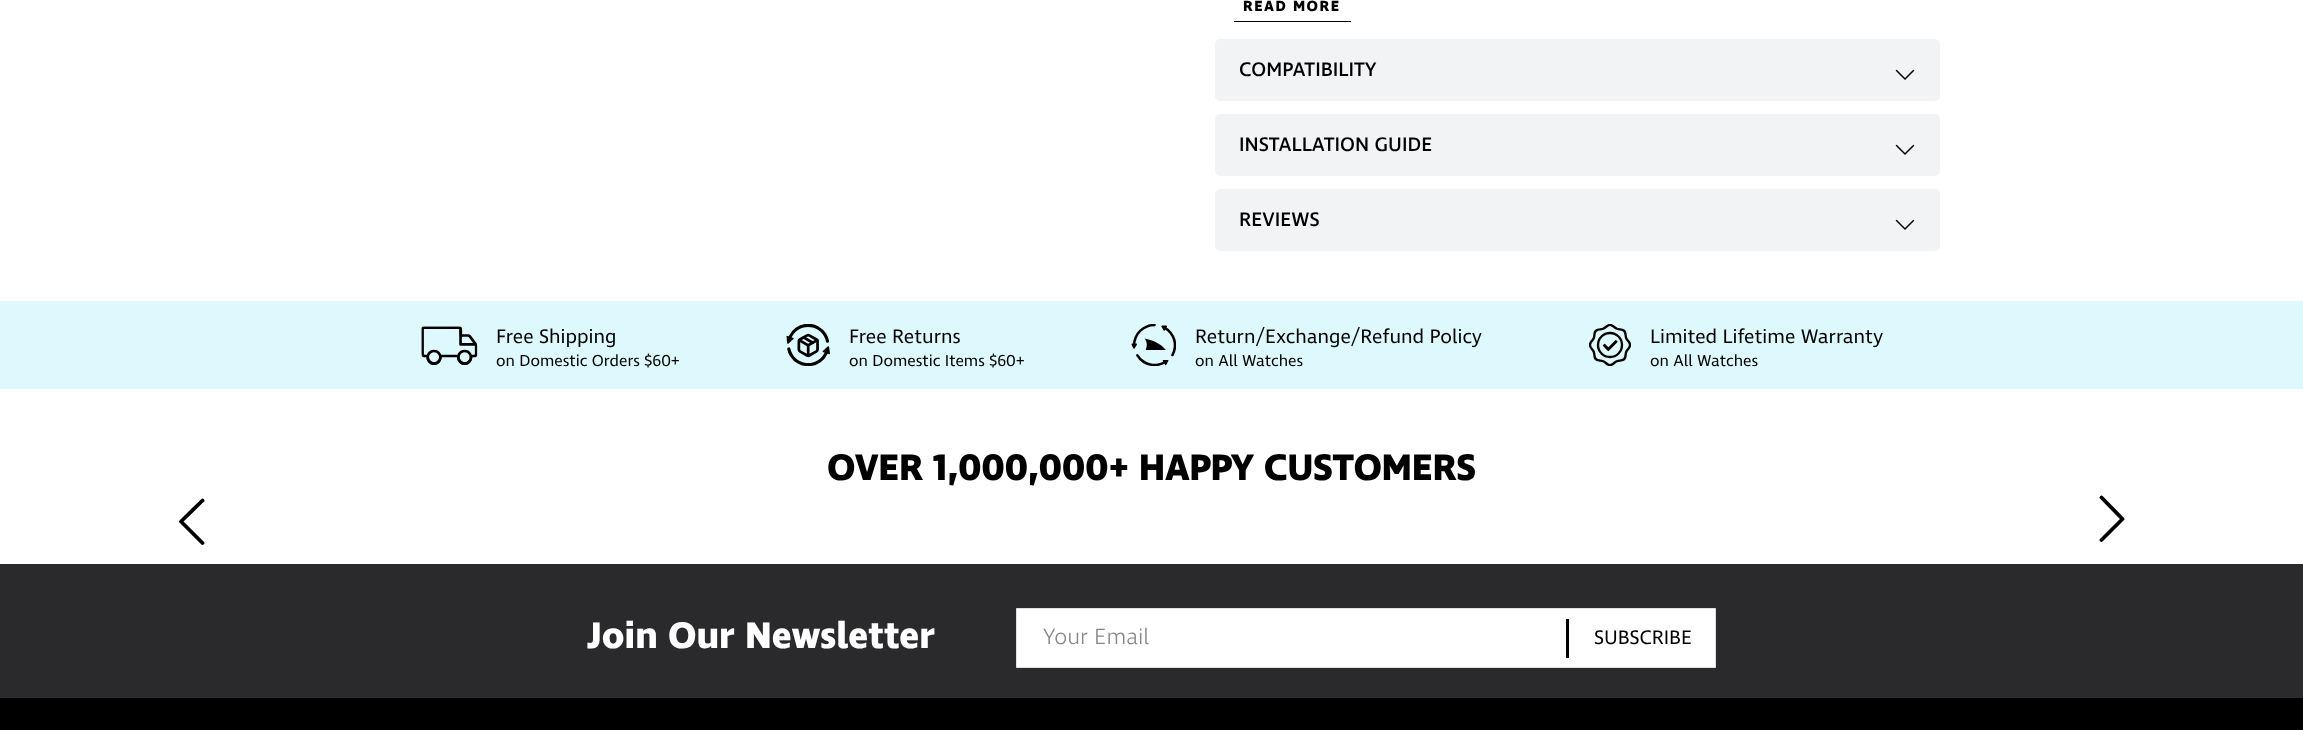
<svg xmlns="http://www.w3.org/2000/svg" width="2303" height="730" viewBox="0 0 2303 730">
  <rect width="100%" height="100%" fill="#fff"/>
  <path d="M1234 21h117v1H1234z" fill="#000"/>
  <rect x="1215" y="39" width="725" height="62" rx="5" fill="#f2f3f4"/>
  <path d="M1896.5 70.5L1905 79L1913.5 70.5" fill="none" stroke="#000" stroke-width="1.5" stroke-linecap="round" stroke-linejoin="round"/>
  <rect x="1215" y="114" width="725" height="62" rx="5" fill="#f2f3f4"/>
  <path d="M1896.5 145.5L1905 154L1913.5 145.5" fill="none" stroke="#000" stroke-width="1.5" stroke-linecap="round" stroke-linejoin="round"/>
  <rect x="1215" y="189" width="725" height="62" rx="5" fill="#f2f3f4"/>
  <path d="M1896.5 220.5L1905 229L1913.5 220.5" fill="none" stroke="#000" stroke-width="1.5" stroke-linecap="round" stroke-linejoin="round"/>
  <path d="M0 301h2303v88H0z" fill="#ddf9fd"/>
  <image x="421" y="326" width="57" height="39" href="img/1.png"/>
  <image x="786" y="324" width="44" height="42" href="img/2.png"/>
  <image x="1131" y="324" width="45" height="42" href="img/3.png"/>
  <image x="1589" y="324" width="42" height="42" href="img/4.png"/>
  <path d="M202.5 500.5L181 521.5L202.5 543" fill="none" stroke="#000" stroke-width="3.8" stroke-linecap="round" stroke-linejoin="round"/>
  <path d="M2101.5 540L2122.5 519L2101.5 497.5" fill="none" stroke="#000" stroke-width="3.8" stroke-linecap="round" stroke-linejoin="round"/>
  <path d="M0 564h2303v134H0z" fill="#2a2a2d"/>
  <path d="M1016.5 608.5h699v59H1016.5z" fill="#fff" stroke="#dfdfdf"/>
  <path d="M1566 619h3v39H1566z" fill="#000"/>
  <path d="M0 698h2303v32H0z" fill="#000"/>
  <text x="1243" y="11" font-family="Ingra" font-size="15" font-weight="bold" letter-spacing="1.5" fill="#000">READ MORE</text>
  <g font-family="Ingra" font-size="20" font-weight="500" fill="#000">
    <text x="1239" y="76">COMPATIBILITY</text>
    <text x="1239" y="151">INSTALLATION GUIDE</text>
    <text x="1239" y="226">REVIEWS</text>
  </g>
  <text x="496" y="343" font-family="Ingra" font-size="20" fill="#000">Free Shipping</text>
  <text x="496" y="366" font-family="Ingra" font-size="16.25" fill="#000">on Domestic Orders $60+</text>
  <text x="849" y="343" font-family="Ingra" font-size="20" fill="#000">Free Returns</text>
  <text x="849" y="366" font-family="Ingra" font-size="16.25" fill="#000">on Domestic Items $60+</text>
  <text x="1195" y="343" font-family="Ingra" font-size="20" fill="#000">Return/Exchange/Refund Policy</text>
  <text x="1195" y="366" font-family="Ingra" font-size="16.25" fill="#000">on All Watches</text>
  <text x="1650" y="343" font-family="Ingra" font-size="20" fill="#000">Limited Lifetime Warranty</text>
  <text x="1650" y="366" font-family="Ingra" font-size="16.25" fill="#000">on All Watches</text>
  <text x="827" y="480" font-family="Ingra" font-size="37.5" font-weight="bold" letter-spacing="-0.4" fill="#000">OVER 1,000,000+ HAPPY CUSTOMERS</text>
  <text x="587" y="648" font-family="Ingra" font-size="37.5" font-weight="bold" fill="#fff">Join Our Newsletter</text>
  <text x="1043" y="644" font-family="Ingra" font-size="22.5" font-weight="300" fill="#888">Your Email</text>
  <text x="1594" y="644" font-family="Ingra" font-size="20" fill="#000">SUBSCRIBE</text>
</svg>
